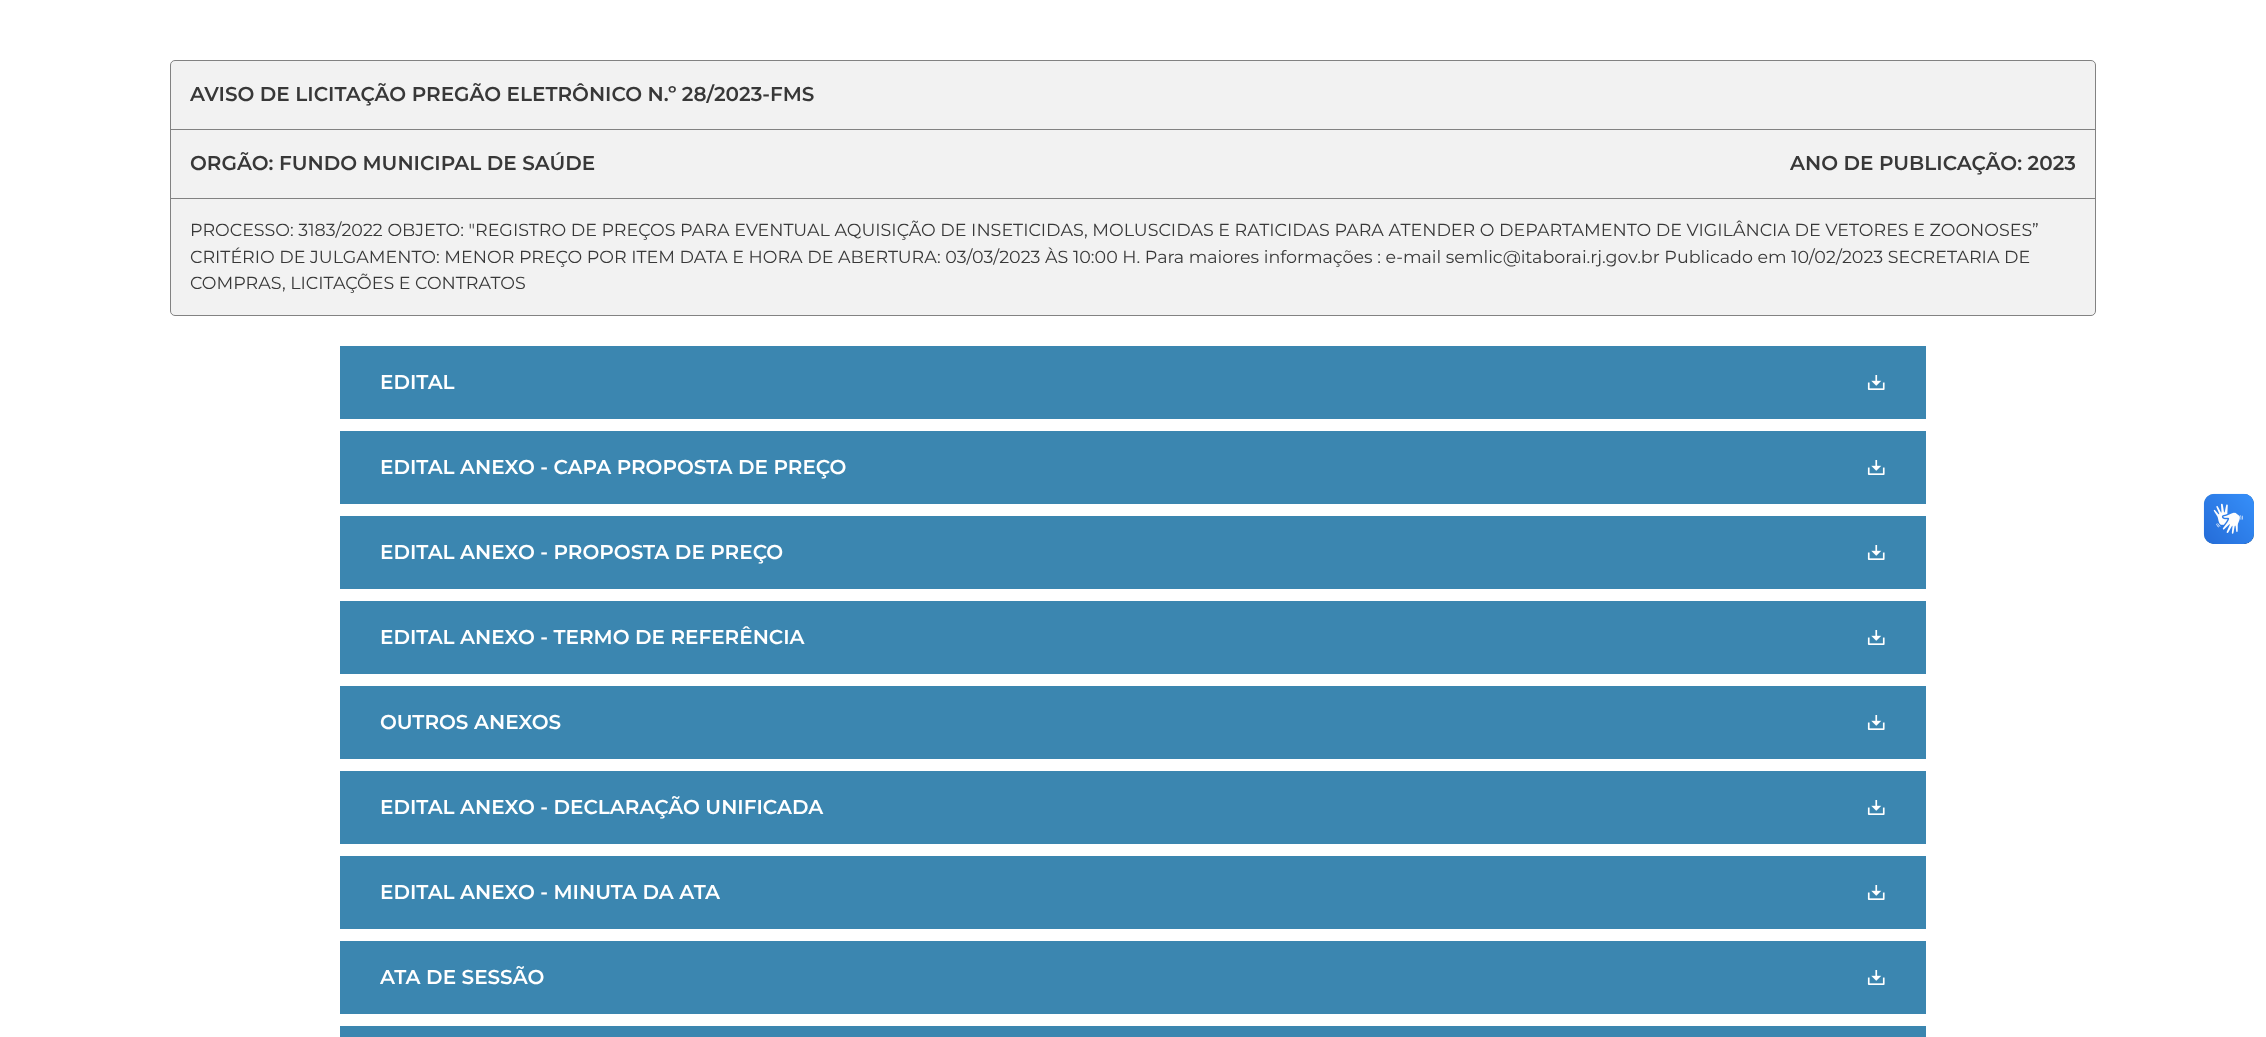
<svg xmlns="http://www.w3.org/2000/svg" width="2266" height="1037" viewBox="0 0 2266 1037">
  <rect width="100%" height="100%" fill="#fff"/>
  <rect x="170.5" y="60.5" width="1925" height="255" rx="4.5" fill="#f2f2f2" stroke="#828282"/>
  <path d="M171 129h1924v1H171z" fill="#828282"/>
  <path d="M171 198h1924v1H171z" fill="#828282"/>
  <path d="M340 346h1586v73H340z" fill="#3b86b0"/>
  <image x="1867" y="375" width="18" height="15" href="img/1.png"/>
  <path d="M340 431h1586v73H340z" fill="#3b86b0"/>
  <image x="1867" y="460" width="18" height="15" href="img/1.png"/>
  <path d="M340 516h1586v73H340z" fill="#3b86b0"/>
  <image x="1867" y="545" width="18" height="15" href="img/1.png"/>
  <path d="M340 601h1586v73H340z" fill="#3b86b0"/>
  <image x="1867" y="630" width="18" height="15" href="img/1.png"/>
  <path d="M340 686h1586v73H340z" fill="#3b86b0"/>
  <image x="1867" y="715" width="18" height="15" href="img/1.png"/>
  <path d="M340 771h1586v73H340z" fill="#3b86b0"/>
  <image x="1867" y="800" width="18" height="15" href="img/1.png"/>
  <path d="M340 856h1586v73H340z" fill="#3b86b0"/>
  <image x="1867" y="885" width="18" height="15" href="img/1.png"/>
  <path d="M340 941h1586v73H340z" fill="#3b86b0"/>
  <image x="1867" y="970" width="18" height="15" href="img/1.png"/>
  <path d="M340 1026h1586v11H340z" fill="#3b86b0"/>
  <rect x="2204" y="494" width="50" height="50" rx="10" fill="#004e90"/>
  <image x="2203" y="493" width="51" height="51" href="img/2.png"/>
  <image x="2204" y="494" width="50" height="50" href="img/3.png"/>
  <g font-family="Montserrat" font-size="20" font-weight="600" fill="#383838">
    <text x="190" y="101">AVISO DE LICITAÇÃO PREGÃO ELETRÔNICO N.º 28/2023-FMS</text>
    <text x="190" y="170">ORGÃO: FUNDO MUNICIPAL DE SAÚDE</text>
    <text x="1790" y="170">ANO DE PUBLICAÇÃO: 2023</text>
  </g>
  <g font-family="Montserrat" font-size="17.5" fill="#383838">
    <text x="190" y="236">PROCESSO: 3183/2022 OBJETO: "REGISTRO DE PREÇOS PARA EVENTUAL AQUISIÇÃO DE INSETICIDAS, MOLUSCIDAS E RATICIDAS PARA ATENDER O DEPARTAMENTO DE VIGILÂNCIA DE VETORES E ZOONOSES”</text>
    <text x="190" y="263">CRITÉRIO DE JULGAMENTO: MENOR PREÇO POR ITEM DATA E HORA DE ABERTURA: 03/03/2023 ÀS 10:00 H. Para maiores informações : e-mail semlic@itaborai.rj.gov.br Publicado em 10/02/2023 SECRETARIA DE</text>
    <text x="190" y="289">COMPRAS, LICITAÇÕES E CONTRATOS</text>
  </g>
  <g font-family="Montserrat" font-size="20" font-weight="600" fill="#fff">
    <text x="380" y="389">EDITAL</text>
    <text x="380" y="474">EDITAL ANEXO - CAPA PROPOSTA DE PREÇO</text>
    <text x="380" y="559">EDITAL ANEXO - PROPOSTA DE PREÇO</text>
    <text x="380" y="644">EDITAL ANEXO - TERMO DE REFERÊNCIA</text>
    <text x="380" y="729">OUTROS ANEXOS</text>
    <text x="380" y="814">EDITAL ANEXO - DECLARAÇÃO UNIFICADA</text>
    <text x="380" y="899">EDITAL ANEXO - MINUTA DA ATA</text>
    <text x="380" y="984">ATA DE SESSÃO</text>
  </g>
</svg>
